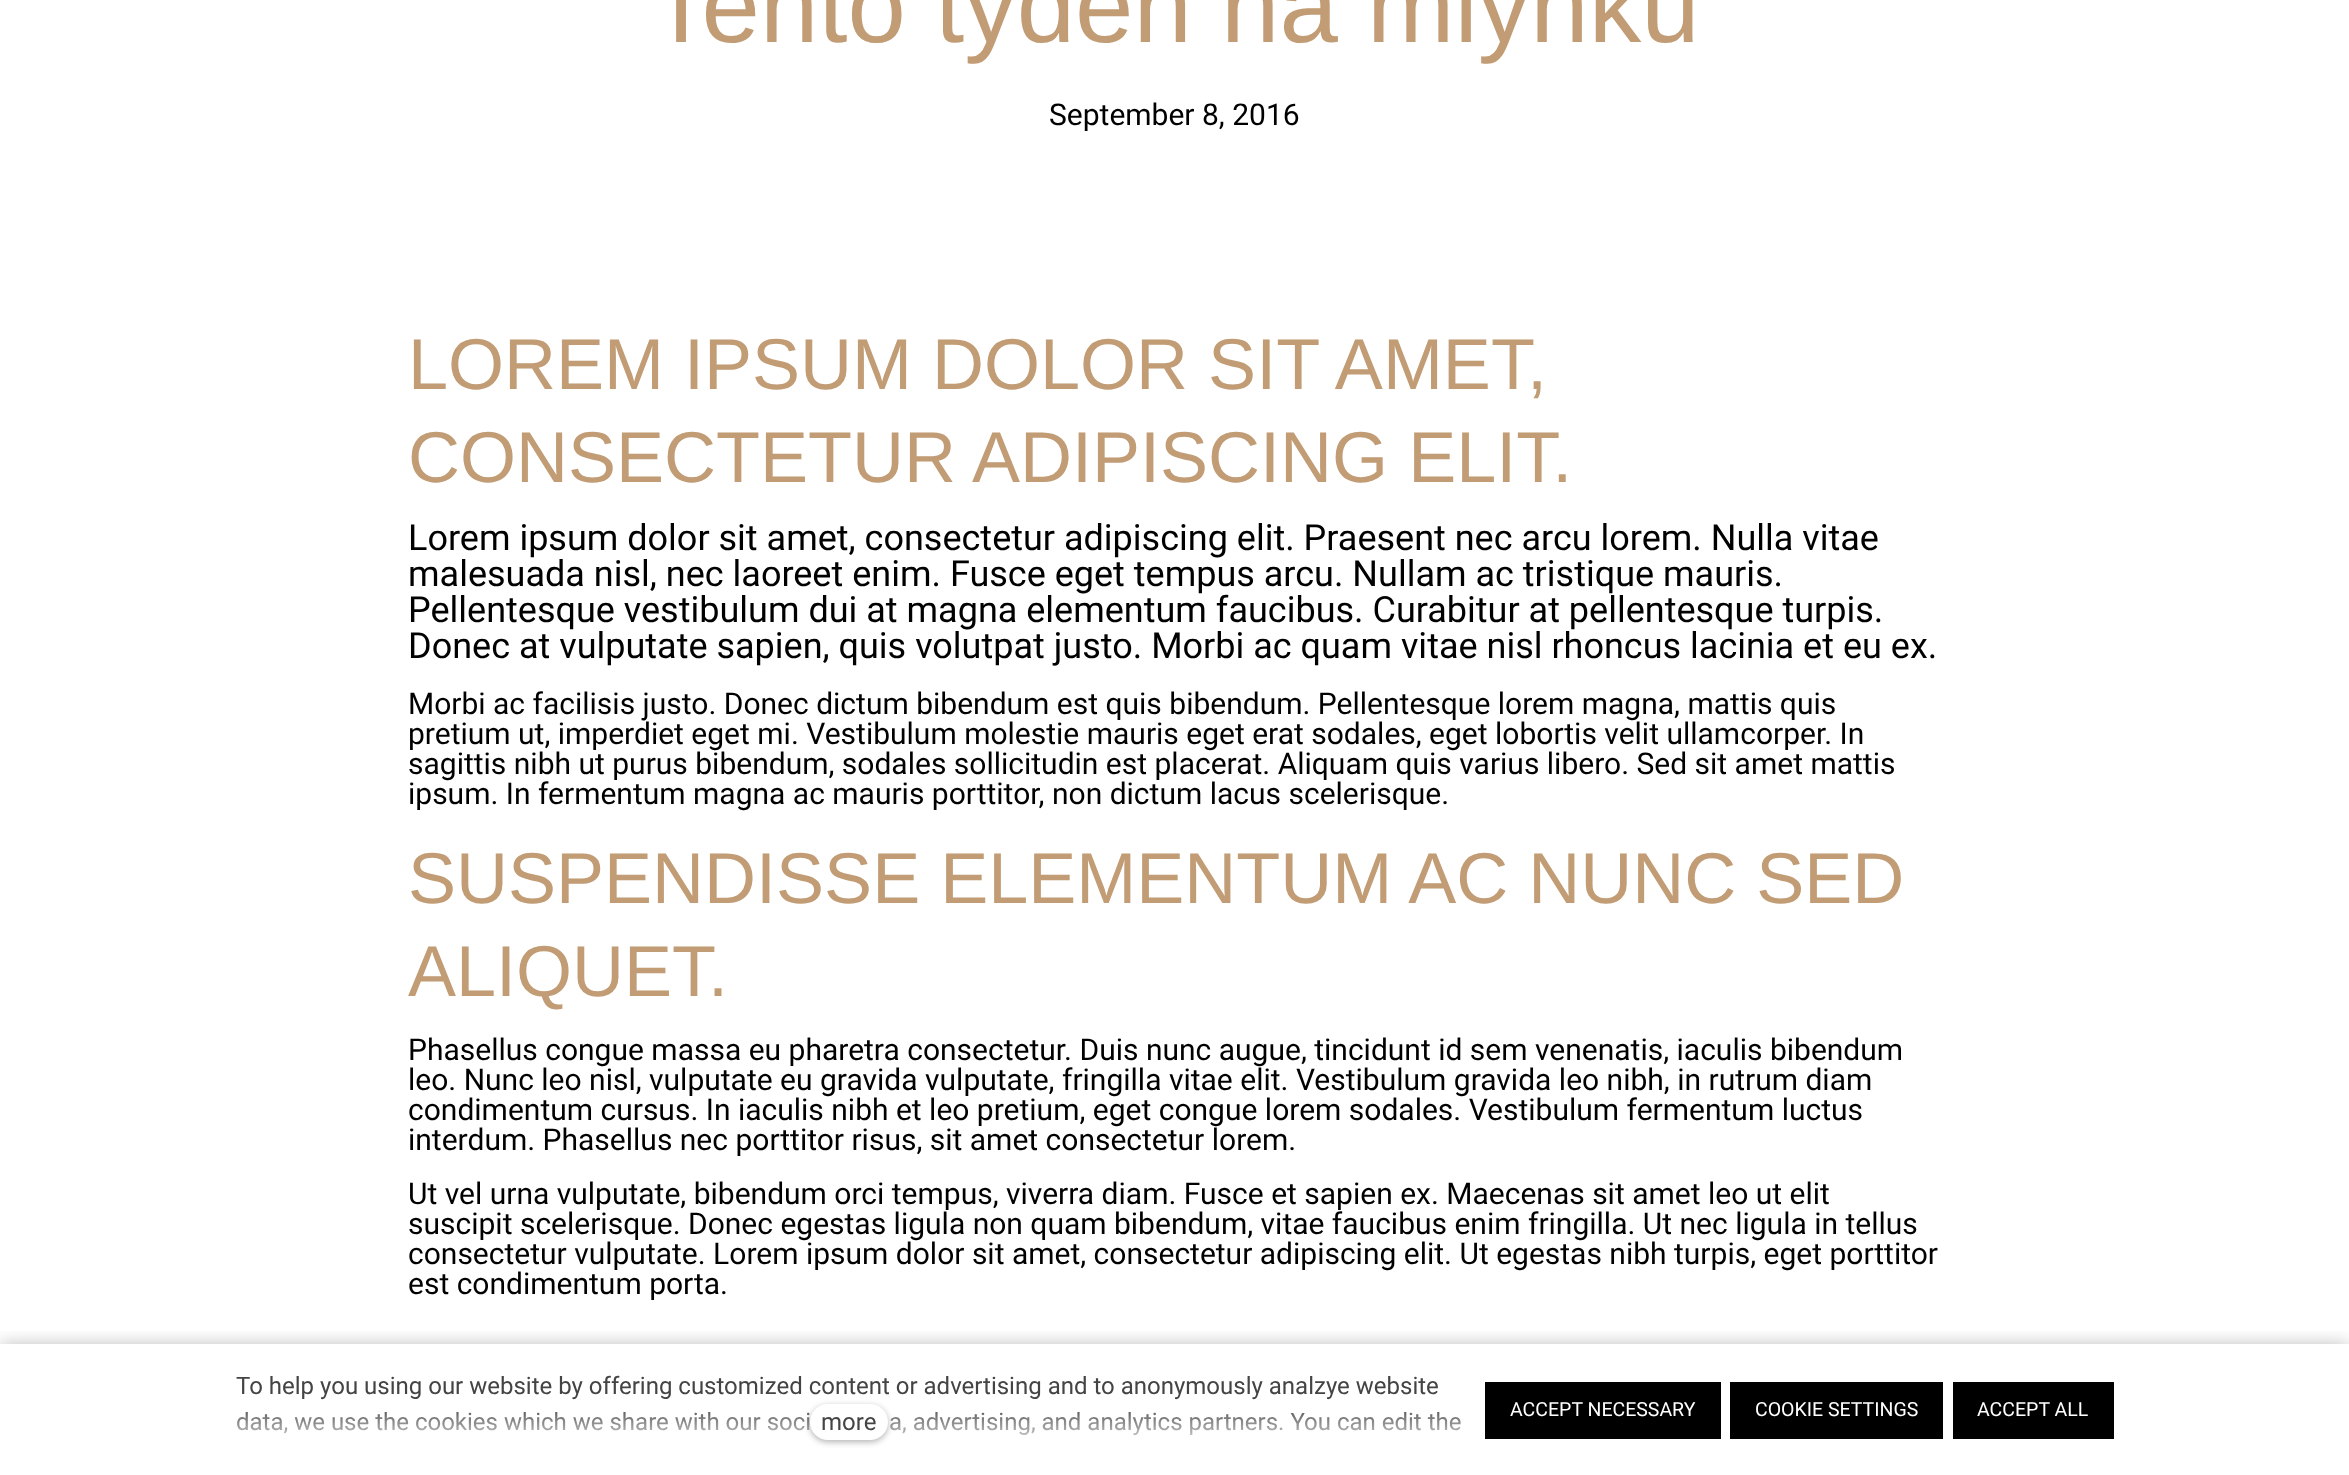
<svg xmlns="http://www.w3.org/2000/svg" width="2349" height="1475" viewBox="0 0 2349 1475">
  <defs>
    <clipPath id="clip1"><path d="M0 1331h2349v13H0z"/></clipPath>
    <linearGradient id="g1" gradientUnits="userSpaceOnUse" x1="848" y1="1452" x2="848" y2="1404"><stop offset="0" stop-color="#fff"/><stop offset="1" stop-color="#fff" stop-opacity="0"/></linearGradient>
  </defs>
  <rect width="100%" height="100%" fill="#fff"/>
  <g clip-path="url(#clip1)">
    <path d="M0 1344h2349v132H0z" fill="#00000040" filter="blur(9px)"/>
  </g>
  <path d="M1485 1382h236v57H1485z" fill="#000"/>
  <path d="M1730 1382h213v57H1730z" fill="#000"/>
  <path d="M1953 1382h161v57H1953z" fill="#000"/>
  <text x="649" y="42" font-family="Liberation Sans" font-size="105" fill="#c19c74">Tento týden na mlýnku</text>
  <text x="1049" y="125" font-family="Roboto" font-size="30" fill="#000">September 8, 2016</text>
  <g font-family="Liberation Sans" font-size="72" fill="#c19c74">
    <text x="408" y="389">LOREM IPSUM DOLOR SIT AMET,</text>
    <text x="408" y="482">CONSECTETUR ADIPISCING ELIT.</text>
  </g>
  <g font-family="Roboto" font-size="36" fill="#000">
    <text x="408" y="550">Lorem ipsum dolor sit amet, consectetur adipiscing elit. Praesent nec arcu lorem. Nulla vitae</text>
    <text x="408" y="586">malesuada nisl, nec laoreet enim. Fusce eget tempus arcu. Nullam ac tristique mauris.</text>
    <text x="408" y="622">Pellentesque vestibulum dui at magna elementum faucibus. Curabitur at pellentesque turpis.</text>
    <text x="408" y="658">Donec at vulputate sapien, quis volutpat justo. Morbi ac quam vitae nisl rhoncus lacinia et eu ex.</text>
  </g>
  <g font-family="Roboto" font-size="30" fill="#000">
    <text x="408" y="714">Morbi ac facilisis justo. Donec dictum bibendum est quis bibendum. Pellentesque lorem magna, mattis quis</text>
    <text x="408" y="744">pretium ut, imperdiet eget mi. Vestibulum molestie mauris eget erat sodales, eget lobortis velit ullamcorper. In</text>
    <text x="408" y="774">sagittis nibh ut purus bibendum, sodales sollicitudin est placerat. Aliquam quis varius libero. Sed sit amet mattis</text>
    <text x="408" y="804">ipsum. In fermentum magna ac mauris porttitor, non dictum lacus scelerisque.</text>
  </g>
  <g font-family="Liberation Sans" font-size="72" fill="#c19c74">
    <text x="408" y="903">SUSPENDISSE ELEMENTUM AC NUNC SED</text>
    <text x="408" y="996">ALIQUET.</text>
  </g>
  <g font-family="Roboto" font-size="30" fill="#000">
    <text x="408" y="1060">Phasellus congue massa eu pharetra consectetur. Duis nunc augue, tincidunt id sem venenatis, iaculis bibendum</text>
    <text x="408" y="1090">leo. Nunc leo nisl, vulputate eu gravida vulputate, fringilla vitae elit. Vestibulum gravida leo nibh, in rutrum diam</text>
    <text x="408" y="1120">condimentum cursus. In iaculis nibh et leo pretium, eget congue lorem sodales. Vestibulum fermentum luctus</text>
    <text x="408" y="1150">interdum. Phasellus nec porttitor risus, sit amet consectetur lorem.</text>
    <text x="408" y="1204">Ut vel urna vulputate, bibendum orci tempus, viverra diam. Fusce et sapien ex. Maecenas sit amet leo ut elit</text>
    <text x="408" y="1234">suscipit scelerisque. Donec egestas ligula non quam bibendum, vitae faucibus enim fringilla. Ut nec ligula in tellus</text>
    <text x="408" y="1264">consectetur vulputate. Lorem ipsum dolor sit amet, consectetur adipiscing elit. Ut egestas nibh turpis, eget porttitor</text>
    <text x="408" y="1294">est condimentum porta.</text>
  </g>
  <g font-family="Roboto" font-size="24" fill="#444">
    <text x="236" y="1394">To help you using our website by offering customized content or advertising and to anonymously analzye website</text>
    <text x="236" y="1430">data, we use the cookies which we share with our soci</text>
    <text x="889" y="1430">a, advertising, and analytics partners. You can edit the</text>
  </g>
  <path d="M236 1412h1225v24H236z" fill="url(#g1)"/>
  <rect x="810" y="1406" width="78" height="36" rx="18" fill="#0000004d" filter="blur(3px)"/>
  <rect x="810" y="1404" width="78" height="36" rx="18" fill="#fff"/>
  <text x="821" y="1430" font-family="Roboto" font-size="24" fill="#444">more</text>
  <g font-family="Roboto" font-size="19.5" fill="#fff">
    <text x="1510" y="1416">ACCEPT NECESSARY</text>
    <text x="1755" y="1416">COOKIE SETTINGS</text>
    <text x="1977" y="1416">ACCEPT ALL</text>
  </g>
</svg>
